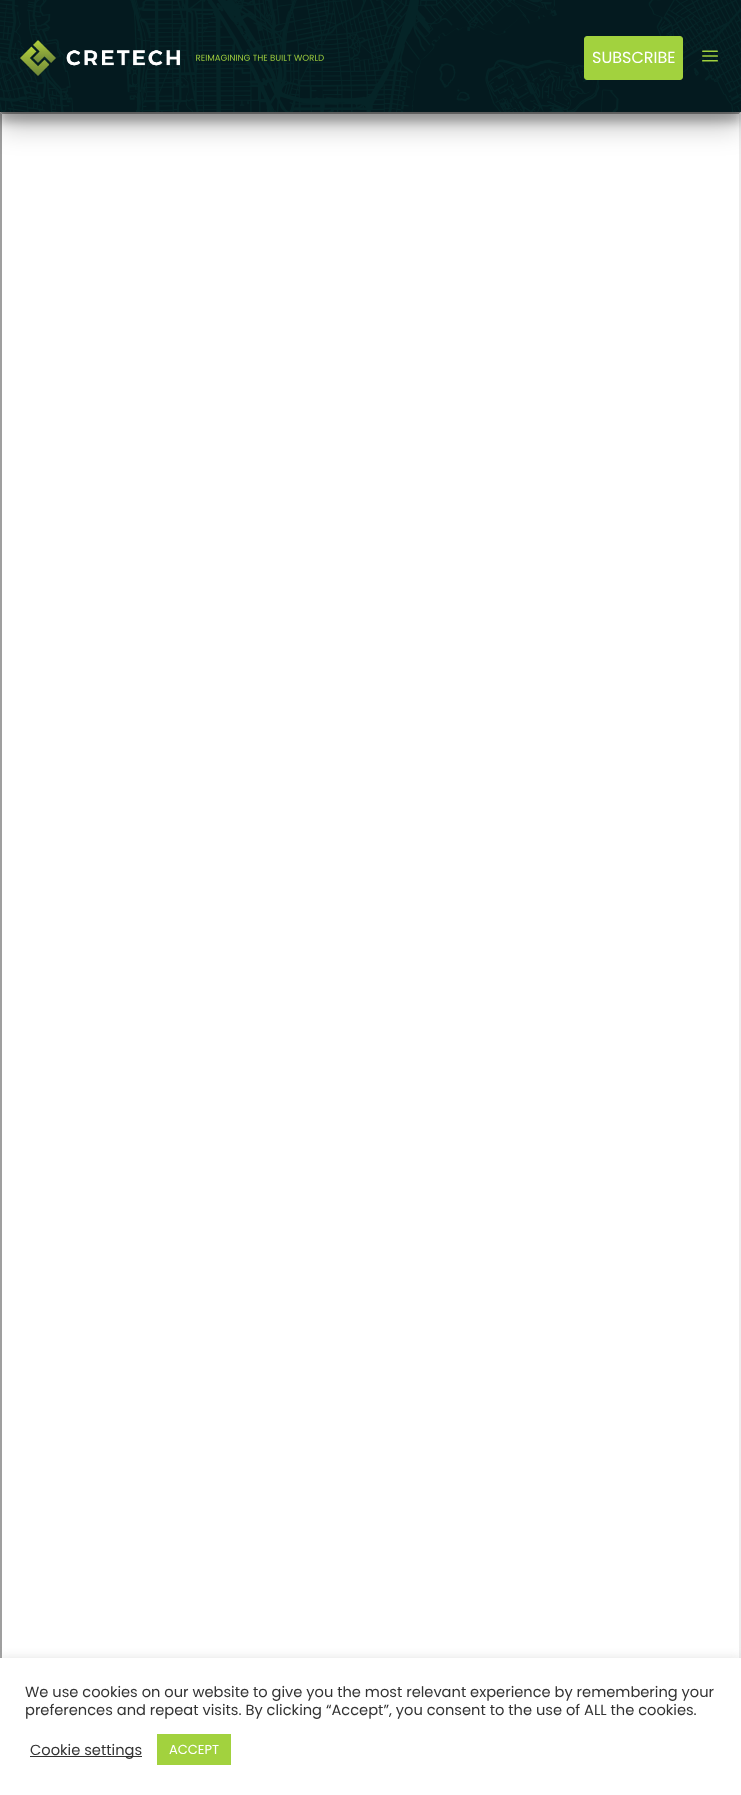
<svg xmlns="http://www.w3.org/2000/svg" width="741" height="1795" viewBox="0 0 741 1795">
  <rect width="100%" height="100%" fill="#fff"/>
  <path d="M0 112H741L739 114H2Z" fill="#9f9f9f"/>
  <path d="M741 112V1795L739 1793V114Z" fill="#eee"/>
  <path d="M0 1795V112L2 114V1793Z" fill="#9f9f9f"/>
  <path d="M0 10h741v112H0z" fill="#00000040" filter="blur(5px)"/>
  <path d="M0 14h741v112H0z" fill="#00000040" filter="blur(14px)"/>
  <image x="0" y="0" width="741" height="112" href="img/1.png"/>
  <image x="20" y="40" width="160" height="36" href="img/2.png"/>
  <image x="196" y="54" width="128" height="7" href="img/3.png"/>
  <rect x="584.5" y="36.5" width="98" height="43" rx="2.5" fill="#a2d23e" stroke="#a2d23e"/>
  <image x="702" y="50" width="16" height="12" href="img/4.png"/>
  <path d="M0 1657h741v137H0z" fill="#acabab4d" filter="blur(5px)"/>
  <path d="M0 1658h741v137H0z" fill="#fff"/>
  <path d="M30 1756h112v1H30z" fill="#333"/>
  <path d="M157 1734h74v31H157z" fill="#a2d23e"/>
  <text x="592" y="63" font-family="Poppins" font-size="16" fill="#fff">SUBSCRIBE</text>
  <g font-family="Poppins" font-size="14.65" fill="#333">
    <text x="25" y="1697">We use cookies on our website to give you the most relevant experience by remembering your</text>
    <text x="25" y="1715">preferences and repeat visits. By clicking “Accept”, you consent to the use of ALL the cookies.</text>
    <text x="30" y="1755">Cookie settings</text>
  </g>
  <text x="169" y="1754" font-family="Poppins" font-size="13" fill="#fff">ACCEPT</text>
</svg>
